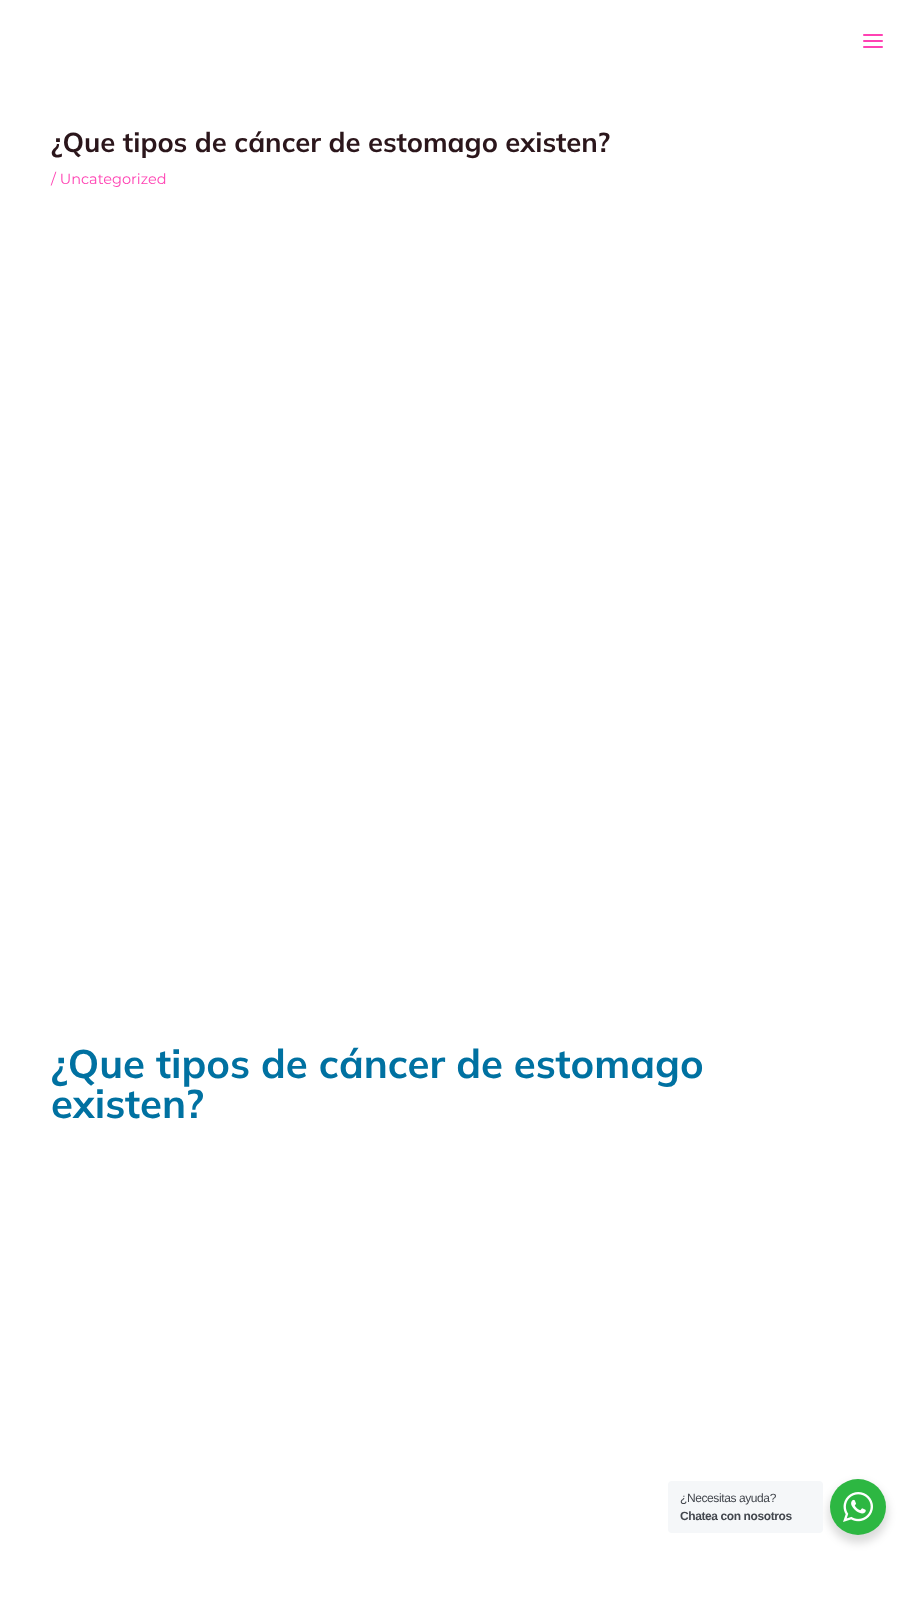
<svg xmlns="http://www.w3.org/2000/svg" width="916" height="1600" viewBox="0 0 916 1600">
  <rect width="100%" height="100%" fill="#fff"/>
  <image x="863" y="34" width="20" height="14" href="img/1.png"/>
  <rect x="828" y="1483" width="60" height="60" rx="30" fill="#00000024" filter="blur(4px)"/>
  <rect x="668" y="1481" width="155" height="52" rx="4" fill="#f5f7f9"/>
  <circle cx="858" cy="1507" r="28" fill="#2db742"/>
  <image x="843" y="1492" width="30" height="30" href="img/2.png"/>
  <text x="51" y="152" font-family="Mulish" font-size="27.4" font-weight="200" fill="#2b161b">¿Que tipos de cáncer de estomago existen?</text>
  <text x="51" y="184" font-family="Montserrat" font-size="14.5" fill="#ff42b3">/ Uncategorized</text>
  <g font-family="Mulish" font-size="40" font-weight="200" fill="#0071a1">
    <text x="51" y="1078">¿Que tipos de cáncer de estomago</text>
    <text x="51" y="1118">existen?</text>
  </g>
  <text x="680" y="1502" font-family="Liberation Sans" font-size="12" letter-spacing="-0.4" fill="#43474e">¿Necesitas ayuda?</text>
  <text x="680" y="1520" font-family="Liberation Sans" font-size="12" font-weight="bold" letter-spacing="-0.4" fill="#43474e">Chatea con nosotros</text>
</svg>
